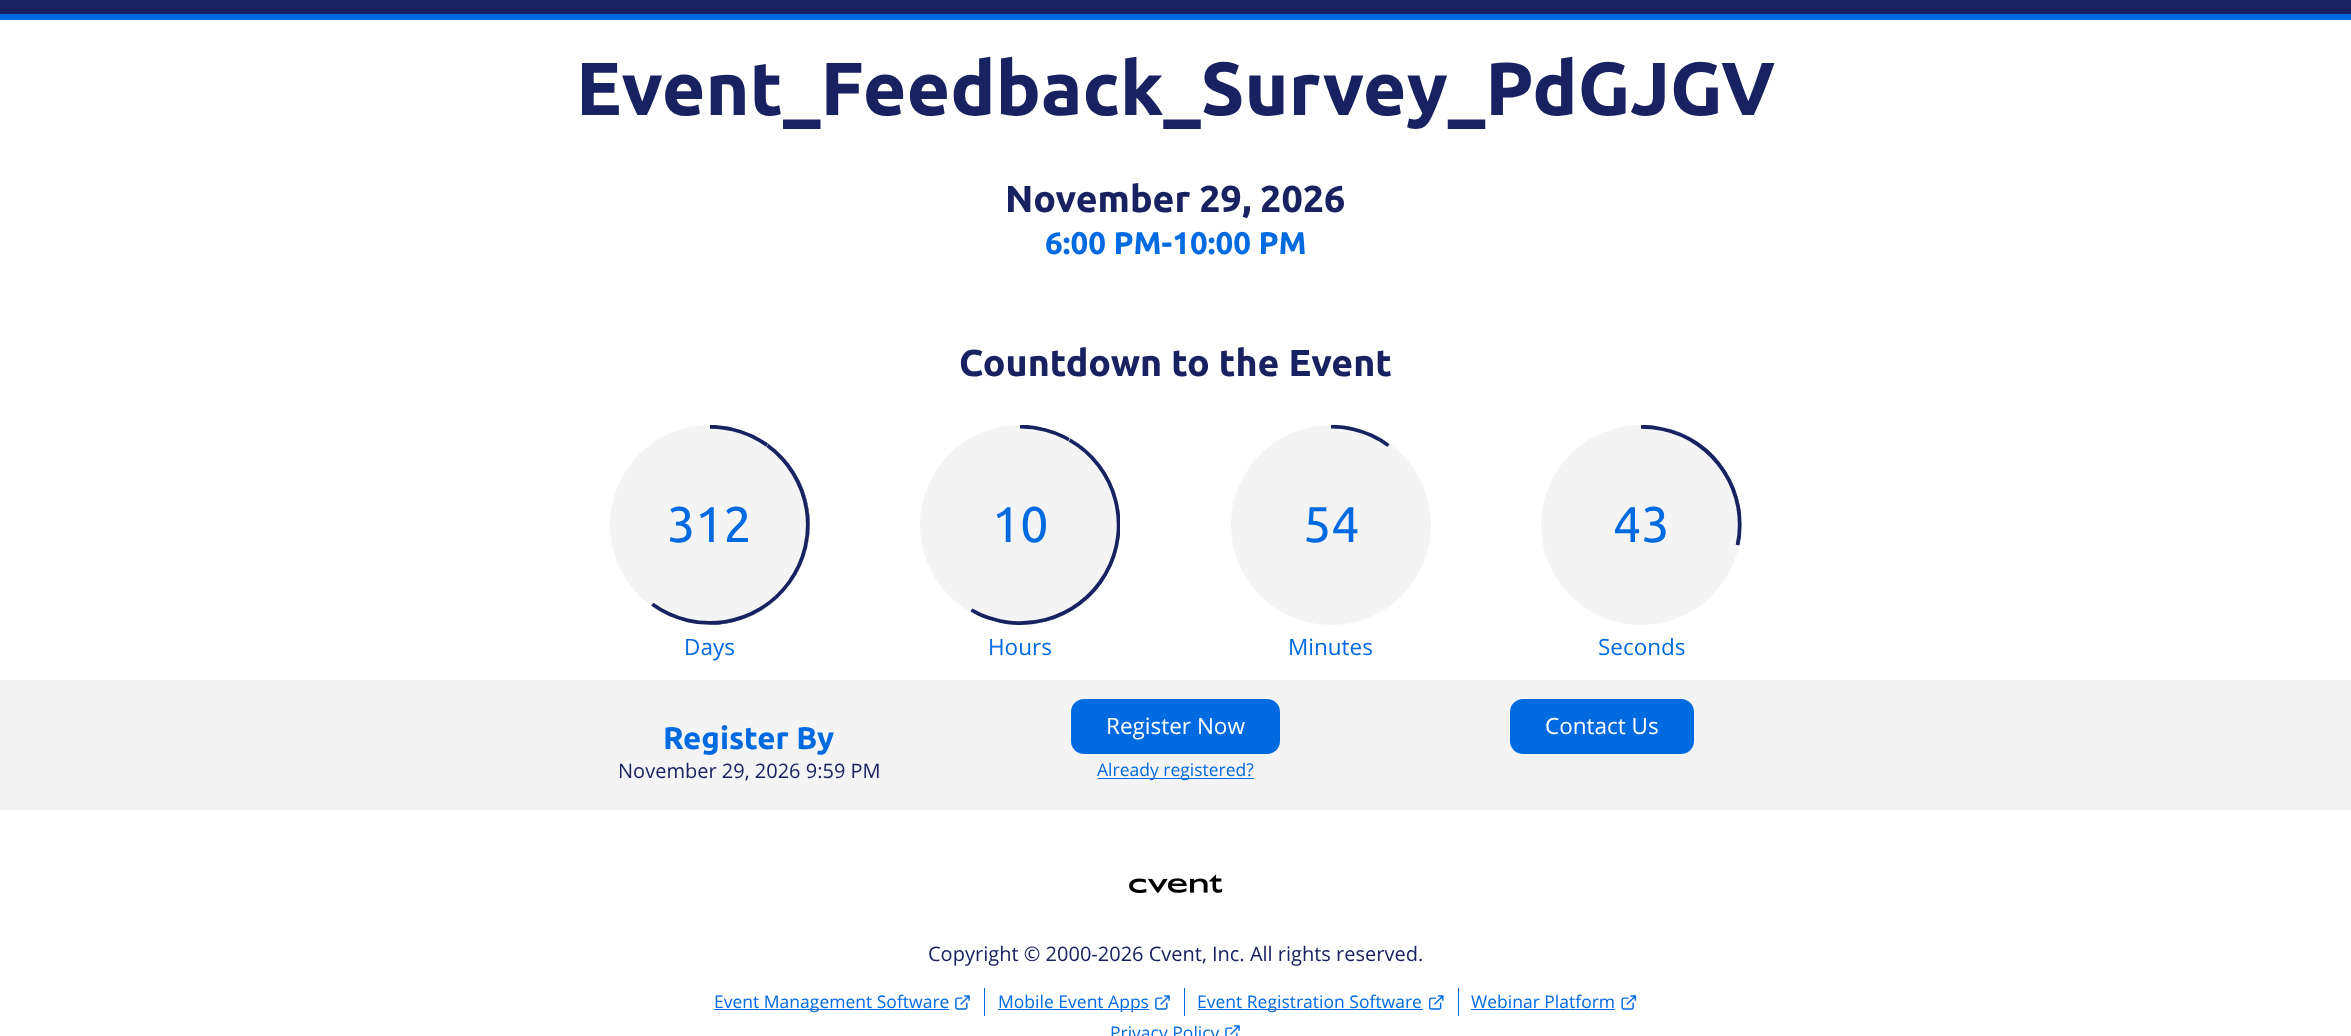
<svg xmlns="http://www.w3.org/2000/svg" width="2351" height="1036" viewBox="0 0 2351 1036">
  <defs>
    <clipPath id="clip1"><path d="M805 556L774 651L583.5 589L614.5 494Z"/></clipPath>
    <clipPath id="clip2"><path d="M732 664.5L651 606L768.5 444L849.5 502.5Z"/></clipPath>
    <clipPath id="clip3"><path d="M710 425h100v200H710z"/></clipPath>
    <clipPath id="clip4"><path d="M835.5 460.5L805 556L614.5 494L645.5 399Z"/></clipPath>
    <clipPath id="clip5"><path d="M1117 550.5L1091 647.5L898 595.5L923.5 499Z"/></clipPath>
    <clipPath id="clip6"><path d="M1057 661.5L970.5 611.5L1070.5 438.5L1157 488.5Z"/></clipPath>
    <clipPath id="clip7"><path d="M1020 425h100v200H1020z"/></clipPath>
    <clipPath id="clip8"><path d="M1143 454L1117 550.5L923.5 499L949.5 402.5Z"/></clipPath>
    <clipPath id="clip9"><path d="M1362 430L1457 460.5L1395 651L1300 620Z"/></clipPath>
    <clipPath id="clip10"><path d="M1309 385L1389.5 444L1272 606L1191.5 547Z"/></clipPath>
    <clipPath id="clip11"><path d="M1331 425h100v200H1331z"/></clipPath>
    <clipPath id="clip12"><path d="M1266.5 399L1362 430L1300 620L1205 589Z"/></clipPath>
    <clipPath id="clip13"><path d="M1719.5 462L1782 539.5L1627 665.5L1564 588Z"/></clipPath>
    <clipPath id="clip14"><path d="M1760 448L1739.5 545.5L1543.5 504L1564.5 406.5Z"/></clipPath>
    <clipPath id="clip15"><path d="M1641 425h100v200H1641z"/></clipPath>
    <clipPath id="clip16"><path d="M1656.5 384L1719.5 462L1564 588L1501 510Z"/></clipPath>
  </defs>
  <rect width="100%" height="100%" fill="#f4f4f4"/>
  <path d="M0 0h2351v14H0z" fill="#182261"/>
  <path d="M0 14h2351v6H0z" fill="#006ae1"/>
  <path d="M0 20h2351v660H0z" fill="#fff"/>
  <circle cx="710" cy="525" r="100" fill="#f4f4f4"/>
  <path d="M785 591C751 629 692 636 651 606L710 525L805 556C803 563 800 570 796 576Z" fill="#f4f4f4"/>
  <g clip-path="url(#clip1)">
    <g clip-path="url(#clip2)">
      <path d="M652 604C608 572.5 598.5 511 630.5 467C662 423.5 723.5 413.5 767.5 445.5C811 477.5 821 538.5 789 582.5C757 626.5 696 636 652 604Z" fill="none" stroke="#182261" stroke-width="3.8"/>
    </g>
  </g>
  <g clip-path="url(#clip3)">
    <path d="M615 494C645 403 774 402 805 493C811 514 811 535 805 556Z" fill="#f4f4f4"/>
  </g>
  <g clip-path="url(#clip3)">
    <g clip-path="url(#clip4)">
      <path d="M803 555C786.5 606.5 731 635 679.5 618C628 601.5 599.5 546 616.5 494.5C633 443 688.5 415 740 431.5C791.5 448.5 820 503.5 803 555Z" fill="none" stroke="#182261" stroke-width="3.8"/>
    </g>
  </g>
  <g clip-path="url(#clip3)">
    <path d="M785 591C751 629 692 636 651 606L768 444C810 474 822 532 796 576Z" fill="#f4f4f4"/>
  </g>
  <g clip-path="url(#clip3)">
    <g clip-path="url(#clip2)">
      <path d="M652 604C608 572.5 598.5 511 630.5 467C662 423.5 723.5 413.5 767.5 445.5C811 477.5 821 538.5 789 582.5C757 626.5 696 636 652 604Z" fill="none" stroke="#182261" stroke-width="3.7"/>
    </g>
  </g>
  <circle cx="1020" cy="525" r="100" fill="#f4f4f4"/>
  <path d="M1104 579C1075 624 1017 638 970 611L1020 525L1117 551C1114 561 1110 570 1104 579Z" fill="#f4f4f4"/>
  <g clip-path="url(#clip5)">
    <g clip-path="url(#clip6)">
      <path d="M971 610C924.5 582.5 908 522.5 935.5 476C962.5 429 1022.5 413 1069.5 440C1116.5 467 1132.5 527 1105.5 574C1078 621 1018 637 971 610Z" fill="none" stroke="#182261" stroke-width="3.8"/>
    </g>
  </g>
  <g clip-path="url(#clip7)">
    <path d="M1052 430C1102 447 1131 499 1117 551L924 499C936 456 975 425 1021 425C1033 425 1041 427 1052 430Z" fill="#f4f4f4"/>
  </g>
  <g clip-path="url(#clip7)">
    <g clip-path="url(#clip8)">
      <path d="M1115 550.5C1101 602.5 1047.5 633.5 995 619.5C942.5 605.5 911.5 552 925.5 499.5C939.5 447 993.5 416 1045.5 430C1098 444 1129 498 1115 550.5Z" fill="none" stroke="#182261" stroke-width="3.8"/>
    </g>
  </g>
  <g clip-path="url(#clip7)">
    <path d="M1104 579C1075 624 1017 638 970 611L1070 438L1073 440C1117 467 1133 524 1110 570Z" fill="#f4f4f4"/>
  </g>
  <g clip-path="url(#clip7)">
    <g clip-path="url(#clip6)">
      <path d="M971.5 610C924.5 582.5 908 522.5 935.5 476C962.5 429 1022.5 413 1069.5 440C1116.5 467 1132.5 527 1105.5 574C1078 621 1018 637 971.5 610Z" fill="none" stroke="#182261" stroke-width="3.7"/>
    </g>
  </g>
  <circle cx="1331" cy="525" r="100" fill="#f4f4f4"/>
  <g clip-path="url(#clip9)">
    <g clip-path="url(#clip10)">
      <path d="M1388.5 445.5C1432.5 477.5 1442 538.5 1410.5 582.5C1378.5 626.5 1317 636 1273.5 604C1229.5 572.5 1219.5 511 1251.5 467C1283.5 423.5 1345 413.5 1388.5 445.5Z" fill="none" stroke="#182261" stroke-width="3.8"/>
    </g>
  </g>
  <g clip-path="url(#clip11)">
    <g clip-path="url(#clip12)">
      <path d="M1361.5 431.5C1413 448.5 1441 503.5 1424.5 555C1407.5 606.5 1352 635 1300.5 618C1249 601.5 1221 546 1237.5 494.5C1254.5 443 1309.5 415 1361.5 431.5Z" fill="none" stroke="#182261" stroke-width="3.8"/>
    </g>
  </g>
  <g clip-path="url(#clip11)">
    <path d="M1248 469L1253 462C1285 422 1342 413 1385 441L1390 444L1272 606C1228 574 1218 514 1248 469Z" fill="#f4f4f4"/>
  </g>
  <g clip-path="url(#clip11)">
    <g clip-path="url(#clip10)">
      <path d="M1388.5 445.5C1432.5 477.5 1442 538.5 1410.5 582.5C1378.5 626.5 1317 636 1273.5 604C1229.5 572.5 1219.5 511 1251.5 467C1283.5 423.5 1345 413.5 1388.5 445.5Z" fill="none" stroke="#182261" stroke-width="3.7"/>
    </g>
  </g>
  <circle cx="1641" cy="525" r="100" fill="#f4f4f4"/>
  <g clip-path="url(#clip13)">
    <g clip-path="url(#clip14)">
      <path d="M1737.5 545.5C1726.5 598.5 1674 632 1621 621C1568 609.5 1534.5 557.5 1545.5 504.5C1557 451.5 1609 417.5 1662 429C1715 440 1749 492.5 1737.5 545.5Z" fill="none" stroke="#182261" stroke-width="3.7"/>
    </g>
  </g>
  <g clip-path="url(#clip15)">
    <path d="M1719 462L1564 588C1502 512 1577 400 1671 429C1690 435 1707 446 1719 462Z" fill="#f4f4f4"/>
  </g>
  <g clip-path="url(#clip15)">
    <g clip-path="url(#clip16)">
      <path d="M1718 463C1752 505 1745.5 567 1703.5 601C1661 635 1599.5 628.5 1565.5 586.5C1531 544.5 1537.5 482.5 1580 448.5C1622 414.5 1683.5 421 1718 463Z" fill="none" stroke="#182261" stroke-width="3.7"/>
    </g>
  </g>
  <g clip-path="url(#clip15)">
    <path d="M1544 504C1555 450 1608 416 1662 427C1716 439 1751 492 1739 546Z" fill="#f4f4f4"/>
  </g>
  <g clip-path="url(#clip15)">
    <g clip-path="url(#clip14)">
      <path d="M1737.5 545.5C1726.5 598.5 1674 632 1621 621C1568 609.5 1534.5 557.5 1545.5 504.5C1557 451.5 1609 417.5 1662 429C1715 440 1749 492.5 1737.5 545.5Z" fill="none" stroke="#182261" stroke-width="3.8"/>
    </g>
  </g>
  <rect x="1071" y="699" width="209" height="55" rx="13" fill="#006ae1"/>
  <path d="M1098 778h156v1H1098z" fill="#006ae1"/>
  <rect x="1510" y="699" width="184" height="55" rx="13" fill="#006ae1"/>
  <path d="M0 810h2351v226H0z" fill="#fff"/>
  <image x="1129" y="874" width="94" height="19" href="img/1.png"/>
  <path d="M714 1009h235v1H714z" fill="#006ae1"/>
  <image x="955" y="995" width="15" height="15" href="img/2.png"/>
  <path d="M984 988h1v28H984z" fill="#006ae1"/>
  <path d="M998 1009h151v1H998z" fill="#006ae1"/>
  <image x="1155" y="995" width="15" height="15" href="img/2.png"/>
  <path d="M1184 988h1v28H1184z" fill="#006ae1"/>
  <path d="M1198 1009h225v1H1198z" fill="#006ae1"/>
  <image x="1428" y="995" width="16" height="15" href="img/3.png"/>
  <path d="M1458 988h1v28H1458z" fill="#006ae1"/>
  <path d="M1471 1009h144v1H1471z" fill="#006ae1"/>
  <image x="1621" y="995" width="16" height="15" href="img/4.png"/>
  <image x="1225" y="1025" width="15" height="11" href="img/5.png"/>
  <text x="576" y="115" font-family="Ubuntu" font-size="75" font-weight="bold" fill="#182261">Event_Feedback_Survey_PdGJGV</text>
  <text x="1005" y="212" font-family="Ubuntu" font-size="37.5" font-weight="bold" fill="#182261">November 29, 2026</text>
  <text x="1045" y="254" font-family="Ubuntu" font-size="31.25" font-weight="bold" fill="#006ae1">6:00 PM-10:00 PM</text>
  <text x="959" y="376" font-family="Ubuntu" font-size="37.5" font-weight="bold" fill="#182261">Countdown to the Event</text>
  <text x="667" y="542" font-family="Ubuntu" font-size="50" fill="#006ae1">312</text>
  <text x="684" y="655" font-family="Open Sans" font-size="22.5" fill="#006ae1">Days</text>
  <text x="992" y="542" font-family="Ubuntu" font-size="50" fill="#006ae1">10</text>
  <text x="988" y="655" font-family="Open Sans" font-size="22.5" fill="#006ae1">Hours</text>
  <text x="1303" y="542" font-family="Ubuntu" font-size="50" fill="#006ae1">54</text>
  <text x="1288" y="655" font-family="Open Sans" font-size="22.5" fill="#006ae1">Minutes</text>
  <text x="1613" y="542" font-family="Ubuntu" font-size="50" fill="#006ae1">43</text>
  <text x="1598" y="655" font-family="Open Sans" font-size="22.5" fill="#006ae1">Seconds</text>
  <text x="663" y="749" font-family="Ubuntu" font-size="31.25" font-weight="bold" fill="#006ae1">Register By</text>
  <text x="618" y="778" font-family="Open Sans" font-size="20" fill="#182261">November 29, 2026 9:59 PM</text>
  <text x="1106" y="734" font-family="Open Sans" font-size="22.5" fill="#fff">Register Now</text>
  <text x="1097" y="776" font-family="Open Sans" font-size="17.5" fill="#006ae1">Already registered?</text>
  <text x="1545" y="734" font-family="Open Sans" font-size="22.5" fill="#fff">Contact Us</text>
  <text x="928" y="961" font-family="Open Sans" font-size="20" fill="#182261">Copyright © 2000-2026 Cvent, Inc. All rights reserved.</text>
  <g font-family="Open Sans" font-size="17.5" fill="#006ae1">
    <text x="714" y="1008">Event Management Software</text>
    <text x="998" y="1008">Mobile Event Apps</text>
    <text x="1197" y="1008">Event Registration Software</text>
    <text x="1471" y="1008">Webinar Platform</text>
    <text x="1110" y="1039">Privacy Policy</text>
  </g>
</svg>
